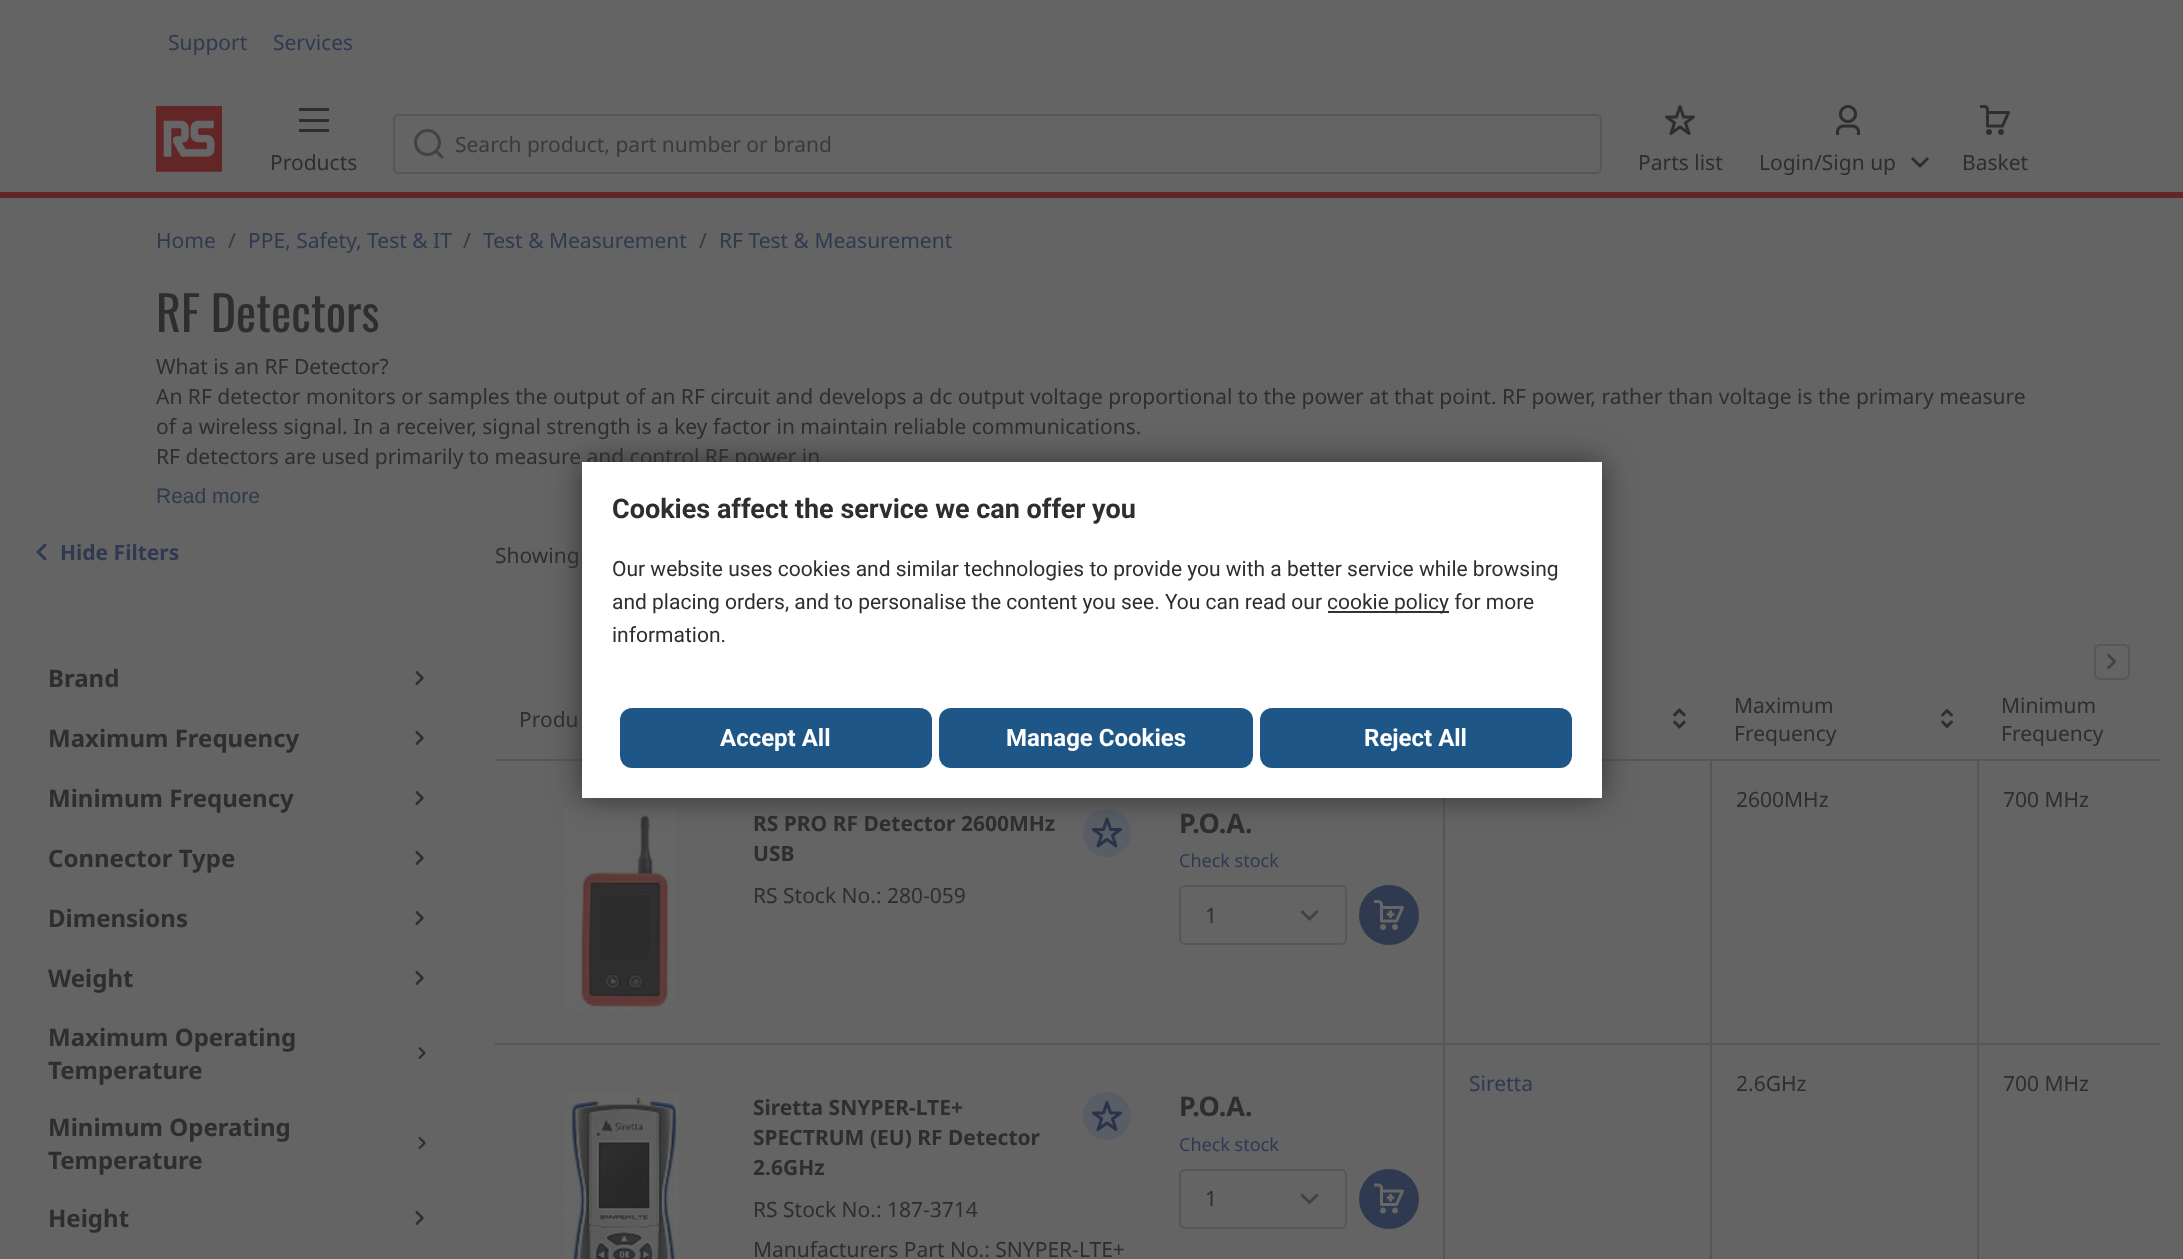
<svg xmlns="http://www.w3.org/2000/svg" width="2183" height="1259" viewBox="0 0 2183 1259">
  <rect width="100%" height="100%" fill="#646464"/>
  <path d="M0 192h2183v6H0z" fill="#622626"/>
  <image x="156" y="106" width="66" height="66" href="img/1.png"/>
  <rect x="394" y="115" width="1207" height="58" rx="5" fill="none" stroke="#565656" stroke-width="2"/>
  <image x="414" y="129" width="30" height="30" href="img/2.png"/>
  <path d="M299 108h30v3H299z" fill="#2e2e2e"/>
  <path d="M299 119h30v3H299z" fill="#2e2e2e"/>
  <path d="M299 129h30v3H299z" fill="#2e2e2e"/>
  <image x="1665" y="105" width="30" height="30" href="img/3.png"/>
  <image x="1836" y="105" width="24" height="30" href="img/4.png"/>
  <path d="M1927 157L1920 164L1913 157L1911 159L1920 168L1929 159Z" fill="#2e2e2e"/>
  <image x="1980" y="105" width="30" height="30" href="img/5.png"/>
  <image x="36" y="543" width="11" height="18" href="img/6.png"/>
  <image x="415" y="671" width="9" height="14" href="img/7.png"/>
  <image x="415" y="731" width="9" height="14" href="img/7.png"/>
  <image x="415" y="791" width="9" height="14" href="img/7.png"/>
  <image x="415" y="851" width="9" height="14" href="img/7.png"/>
  <image x="415" y="911" width="9" height="14" href="img/7.png"/>
  <image x="415" y="971" width="9" height="14" href="img/7.png"/>
  <image x="418" y="1047" width="8" height="12" href="img/8.png"/>
  <image x="418" y="1137" width="8" height="12" href="img/9.png"/>
  <image x="415" y="1211" width="9" height="14" href="img/7.png"/>
  <path d="M495 759h1665v2H495z" fill="#565656"/>
  <rect x="2095" y="645" width="34" height="34" rx="5" fill="none" stroke="#565656" stroke-width="2"/>
  <image x="2107" y="653" width="10" height="17" href="img/10.png"/>
  <image x="1673" y="708" width="13" height="21" href="img/11.png"/>
  <image x="1941" y="708" width="12" height="21" href="img/12.png"/>
  <path d="M1443 798h2v245H1443z" fill="#565656"/>
  <path d="M1710 761h2v282H1710z" fill="#565656"/>
  <path d="M1977 761h2v282H1977z" fill="#565656"/>
  <path d="M495 1043h1665v2H495z" fill="#565656"/>
  <image x="564" y="808" width="112" height="203" href="img/13.png"/>
  <circle cx="1107" cy="833" r="24" fill="#595e66"/>
  <image x="1092" y="817" width="30" height="31" href="img/14.png"/>
  <rect x="1180" y="886" width="166" height="58" rx="5" fill="none" stroke="#565656" stroke-width="2"/>
  <path d="M1316.5 910L1309.5 917L1302.5 910L1300.5 912L1309.5 921L1318.5 912Z" fill="#424242"/>
  <circle cx="1389" cy="915" r="30" fill="#2f3a50"/>
  <image x="1374" y="900" width="30" height="30" href="img/15.png"/>
  <path d="M1443 1044h2v215H1443z" fill="#565656"/>
  <path d="M1710 1044h2v215H1710z" fill="#565656"/>
  <path d="M1977 1044h2v215H1977z" fill="#565656"/>
  <image x="563" y="1092" width="115" height="167" href="img/16.png"/>
  <circle cx="1107" cy="1116" r="24" fill="#595e66"/>
  <image x="1092" y="1101" width="30" height="30" href="img/17.png"/>
  <rect x="1180" y="1170" width="166" height="58" rx="5" fill="none" stroke="#565656" stroke-width="2"/>
  <path d="M1316.5 1193.5L1309.5 1200.5L1302.5 1193.5L1300.5 1195.5L1309.5 1204.5L1318.5 1195.5Z" fill="#424242"/>
  <circle cx="1389" cy="1199" r="30" fill="#2f3a50"/>
  <image x="1374" y="1183" width="30" height="31" href="img/18.png"/>
  <path d="M582 462h1020v336H582z" fill="#333" filter="blur(15px)"/>
  <g font-family="Noto Sans" font-size="21" fill="#2f3a50">
    <text x="168" y="50">Support</text>
    <text x="273" y="50">Services</text>
  </g>
  <text x="455" y="152" font-family="Noto Sans" font-size="21" fill="#3a3a3a">Search product, part number or brand</text>
  <g font-family="Noto Sans" font-size="21" fill="#2e2e2e">
    <text x="270" y="170">Products</text>
    <text x="1638" y="170">Parts list</text>
    <text x="1759" y="170">Login/Sign up</text>
    <text x="1962" y="170">Basket</text>
  </g>
  <text x="156" y="248" font-family="Noto Sans" font-size="21" fill="#2f3a50">Home</text>
  <text x="228" y="248" font-family="Noto Sans" font-size="21" fill="#3a3a3a">/</text>
  <text x="248" y="248" font-family="Noto Sans" font-size="21" fill="#2f3a50">PPE, Safety, Test &amp; IT</text>
  <text x="463" y="248" font-family="Noto Sans" font-size="21" fill="#3a3a3a">/</text>
  <text x="483" y="248" font-family="Noto Sans" font-size="21" fill="#2f3a50">Test &amp; Measurement</text>
  <text x="699" y="248" font-family="Noto Sans" font-size="21" fill="#3a3a3a">/</text>
  <text x="719" y="248" font-family="Noto Sans" font-size="21" fill="#2f3a50">RF Test &amp; Measurement</text>
  <text x="156" y="332" font-family="Oswald" font-size="48" fill="#2e2e2e">RF Detectors</text>
  <g font-family="Noto Sans" font-size="21" fill="#2e2e2e">
    <text x="156" y="374">What is an RF Detector?</text>
    <text x="156" y="404">An RF detector monitors or samples the output of an RF circuit and develops a dc output voltage proportional to the power at that point. RF power, rather than voltage is the primary measure</text>
    <text x="156" y="434">of a wireless signal. In a receiver, signal strength is a key factor in maintain reliable communications.</text>
    <text x="156" y="464">RF detectors are used primarily to measure and control RF power in ...</text>
  </g>
  <text x="156" y="503" font-family="Liberation Sans" font-size="21" fill="#2f3a50">Read more</text>
  <text x="60" y="560" font-family="Noto Sans" font-size="21" font-weight="bold" fill="#2f3a50">Hide Filters</text>
  <text x="495" y="563" font-family="Noto Sans" font-size="21" fill="#2e2e2e">Showing</text>
  <g font-family="Noto Sans" font-size="24" font-weight="bold" fill="#2e2e2e">
    <text x="48" y="687">Brand</text>
    <text x="48" y="747">Maximum Frequency</text>
    <text x="48" y="807">Minimum Frequency</text>
    <text x="48" y="867">Connector Type</text>
    <text x="48" y="927">Dimensions</text>
    <text x="48" y="987">Weight</text>
    <text x="48" y="1046">Maximum Operating</text>
    <text x="48" y="1079">Temperature</text>
    <text x="48" y="1136">Minimum Operating</text>
    <text x="48" y="1169">Temperature</text>
    <text x="48" y="1227">Height</text>
  </g>
  <g font-family="Noto Sans" font-size="21" fill="#2e2e2e">
    <text x="519" y="727">Produ</text>
    <text x="1734" y="713">Maximum</text>
    <text x="1734" y="741">Frequency</text>
    <text x="2001" y="713">Minimum</text>
    <text x="2001" y="741">Frequency</text>
    <text x="1736" y="807">2600MHz</text>
    <text x="2003" y="807">700 MHz</text>
  </g>
  <g font-family="Noto Sans" font-size="21" font-weight="bold" fill="#2e2e2e">
    <text x="753" y="831">RS PRO RF Detector 2600MHz</text>
    <text x="753" y="861">USB</text>
  </g>
  <text x="753" y="903" font-family="Noto Sans" font-size="21" fill="#2e2e2e">RS Stock No.: 280-059</text>
  <text x="1179" y="833" font-family="Noto Sans" font-size="27" font-weight="bold" fill="#2e2e2e">P.O.A.</text>
  <text x="1179" y="867" font-family="Noto Sans" font-size="18" fill="#2f3a50">Check stock</text>
  <text x="1205" y="923" font-family="Noto Sans" font-size="21" fill="#2e2e2e">1</text>
  <text x="1469" y="1091" font-family="Noto Sans" font-size="21" fill="#2f3a50">Siretta</text>
  <g font-family="Noto Sans" font-size="21" fill="#2e2e2e">
    <text x="1736" y="1091">2.6GHz</text>
    <text x="2003" y="1091">700 MHz</text>
  </g>
  <g font-family="Noto Sans" font-size="21" font-weight="bold" fill="#2e2e2e">
    <text x="753" y="1115">Siretta SNYPER-LTE+</text>
    <text x="753" y="1145">SPECTRUM (EU) RF Detector</text>
    <text x="753" y="1175">2.6GHz</text>
  </g>
  <g font-family="Noto Sans" font-size="21" fill="#2e2e2e">
    <text x="753" y="1217">RS Stock No.: 187-3714</text>
    <text x="753" y="1257">Manufacturers Part No.: SNYPER-LTE+</text>
  </g>
  <text x="1179" y="1116" font-family="Noto Sans" font-size="27" font-weight="bold" fill="#2e2e2e">P.O.A.</text>
  <text x="1179" y="1151" font-family="Noto Sans" font-size="18" fill="#2f3a50">Check stock</text>
  <text x="1205" y="1206" font-family="Noto Sans" font-size="21" fill="#2e2e2e">1</text>
  <path d="M582 462h1020v336H582z" fill="#fff"/>
  <text x="612" y="518" font-family="Roboto" font-size="27" font-weight="bold" fill="#2e2e2e">Cookies affect the service we can offer you</text>
  <g font-family="Roboto" font-size="21" fill="#2e2e2e">
    <text x="612" y="576">Our website uses cookies and similar technologies to provide you with a better service while browsing</text>
    <text x="612" y="609">and placing orders, and to personalise the content you see. You can read our</text>
  </g>
  <path d="M1328 611h121v2H1328z" fill="#333"/>
  <g font-family="Roboto" font-size="21" fill="#2e2e2e">
    <text x="1327" y="609">cookie policy for more</text>
    <text x="612" y="642">information.</text>
  </g>
  <rect x="620" y="708" width="312" height="60" rx="12" fill="#1e5787"/>
  <text x="720" y="746" font-family="Roboto" font-size="24" font-weight="bold" fill="#fff">Accept All</text>
  <rect x="939" y="708" width="314" height="60" rx="12" fill="#1e5787"/>
  <text x="1006" y="746" font-family="Roboto" font-size="24" font-weight="bold" fill="#fff">Manage Cookies</text>
  <rect x="1260" y="708" width="312" height="60" rx="12" fill="#1e5787"/>
  <text x="1364" y="746" font-family="Roboto" font-size="24" font-weight="bold" fill="#fff">Reject All</text>
</svg>
